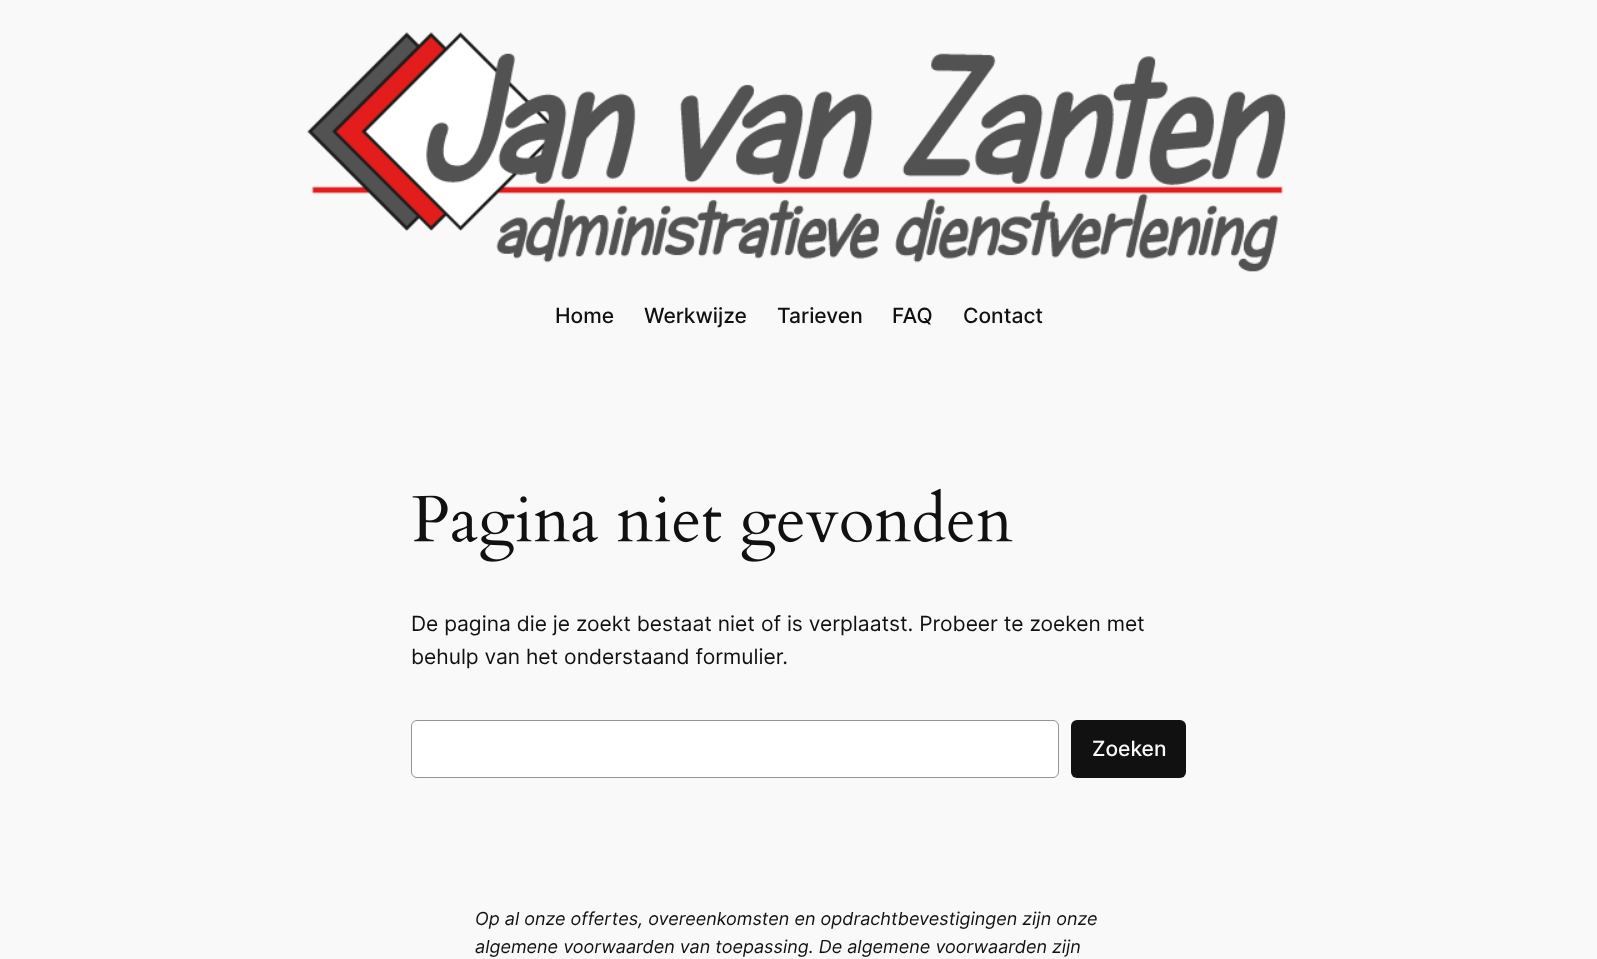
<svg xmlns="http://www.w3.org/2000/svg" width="1597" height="959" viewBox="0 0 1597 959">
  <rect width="100%" height="100%" fill="#f9f9f9"/>
  <image x="307" y="32" width="979" height="240" href="img/1.png"/>
  <image x="412" y="488" width="601" height="74" href="img/2.png"/>
  <rect x="411.5" y="720.5" width="647" height="57" rx="5.5" fill="#fff" stroke="#949494"/>
  <rect x="1071" y="720" width="115" height="58" rx="6" fill="#111"/>
  <g font-family="Inter" font-size="21" font-weight="500" fill="#111">
    <text x="555" y="323">Home</text>
    <text x="644" y="323">Werkwijze</text>
    <text x="777" y="323">Tarieven</text>
    <text x="892" y="323">FAQ</text>
    <text x="963" y="323">Contact</text>
  </g>
  <g font-family="Inter" font-size="21" fill="#111">
    <text x="411" y="631">De pagina die je zoekt bestaat niet of is verplaatst. Probeer te zoeken met</text>
    <text x="411" y="664">behulp van het onderstaand formulier.</text>
  </g>
  <text x="1092" y="756" font-family="Inter" font-size="21" font-weight="500" fill="#f9f9f9">Zoeken</text>
  <g font-family="Inter" font-size="18" font-style="italic" fill="#111">
    <text x="475" y="925">Op al onze offertes, overeenkomsten en opdrachtbevestigingen zijn onze</text>
    <text x="475" y="953">algemene voorwaarden van toepassing. De algemene voorwaarden zijn</text>
  </g>
</svg>
